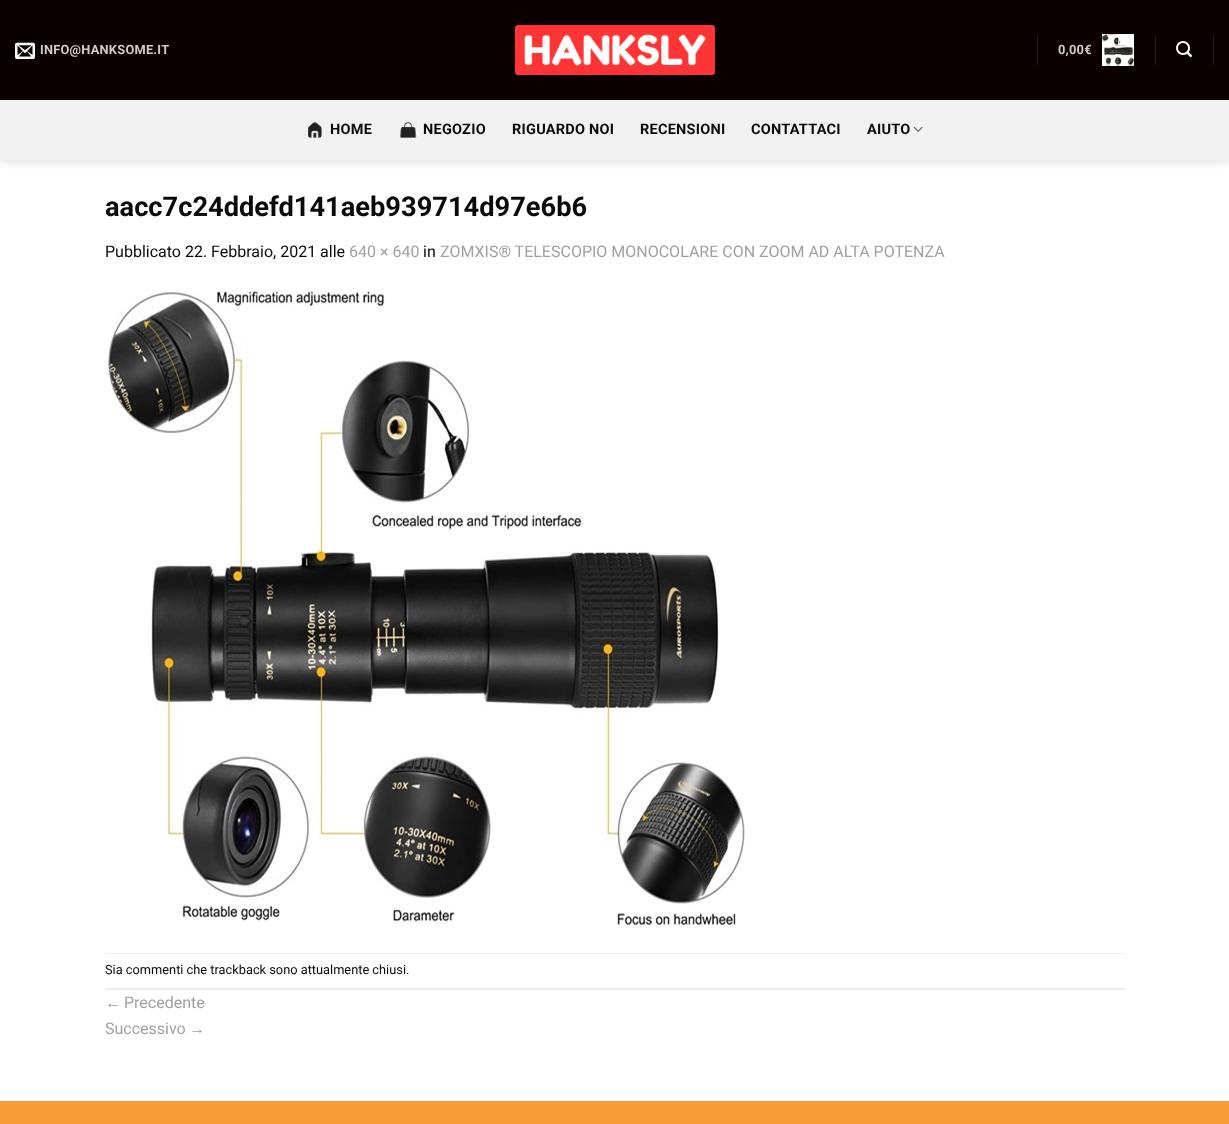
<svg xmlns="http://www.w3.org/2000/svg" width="1229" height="1124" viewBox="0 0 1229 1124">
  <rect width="100%" height="100%" fill="#fff"/>
  <path d="M1 1h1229v160H1z" fill="#00000026" filter="blur(5px)"/>
  <path d="M0 0h1229v100H0z" fill="#0a0000"/>
  <image x="15" y="42" width="20" height="17" href="img/1.png"/>
  <image x="515" y="25" width="200" height="50" href="img/2.png"/>
  <path d="M1037 35h1v30H1037z" fill="#231a1a"/>
  <image x="1102" y="34" width="32" height="32" href="img/3.png"/>
  <path d="M1155 35h1v30H1155z" fill="#231a1a"/>
  <image x="1176" y="41" width="16" height="16" href="img/4.png"/>
  <path d="M1213 35h1v30H1213z" fill="#231a1a"/>
  <path d="M0 100h1229v60H0z" fill="#f1f1f1"/>
  <image x="308" y="122" width="14" height="16" href="img/5.png"/>
  <image x="400" y="122" width="17" height="16" href="img/6.png"/>
  <image x="913" y="126" width="10" height="6" href="img/7.png"/>
  <image x="105" y="290" width="640" height="639" href="img/8.png"/>
  <path d="M105 953h1020v1H105z" fill="#ececec"/>
  <path d="M105 988h1020v2H105z" fill="#ececec"/>
  <path d="M0 1101h1229v23H0z" fill="#f69b35"/>
  <g font-family="Roboto" font-size="12.8" font-weight="bold" letter-spacing="0.25" fill="#cecccc">
    <text x="40" y="54">INFO@HANKSOME.IT</text>
    <text x="1058" y="54">0,00€</text>
  </g>
  <g font-family="Roboto" font-size="14.5" font-weight="bold" letter-spacing="0.25" fill="#0a0a0a">
    <text x="330" y="134">HOME</text>
    <text x="423" y="134">NEGOZIO</text>
    <text x="512" y="134">RIGUARDO NOI</text>
    <text x="640" y="134">RECENSIONI</text>
    <text x="751" y="134">CONTATTACI</text>
    <text x="867" y="134">AIUTO</text>
  </g>
  <text x="105" y="216" font-family="Roboto" font-size="27.25" font-weight="bold" fill="#0a0a0a">aacc7c24ddefd141aeb939714d97e6b6</text>
  <text x="105" y="257" font-family="Roboto" font-size="16" fill="#0a0a0a">Pubblicato 22. Febbraio, 2021 alle</text>
  <text x="349" y="257" font-family="Roboto" font-size="16" fill="#a0a0a0">640 × 640</text>
  <text x="423" y="257" font-family="Roboto" font-size="16" fill="#0a0a0a">in</text>
  <text x="440" y="257" font-family="Roboto" font-size="16" fill="#a0a0a0">ZOMXIS® TELESCOPIO MONOCOLARE CON ZOOM AD ALTA POTENZA</text>
  <text x="105" y="974" font-family="Roboto" font-size="12.8" fill="#0a0a0a">Sia commenti che trackback sono attualmente chiusi.</text>
  <text x="105" y="1008" font-family="Liberation Sans" font-size="16" fill="#a0a0a0">←</text>
  <g font-family="Roboto" font-size="16" fill="#a0a0a0">
    <text x="124" y="1008">Precedente</text>
    <text x="105" y="1034">Successivo</text>
  </g>
  <text x="189" y="1034" font-family="Liberation Sans" font-size="16" fill="#a0a0a0">→</text>
</svg>
